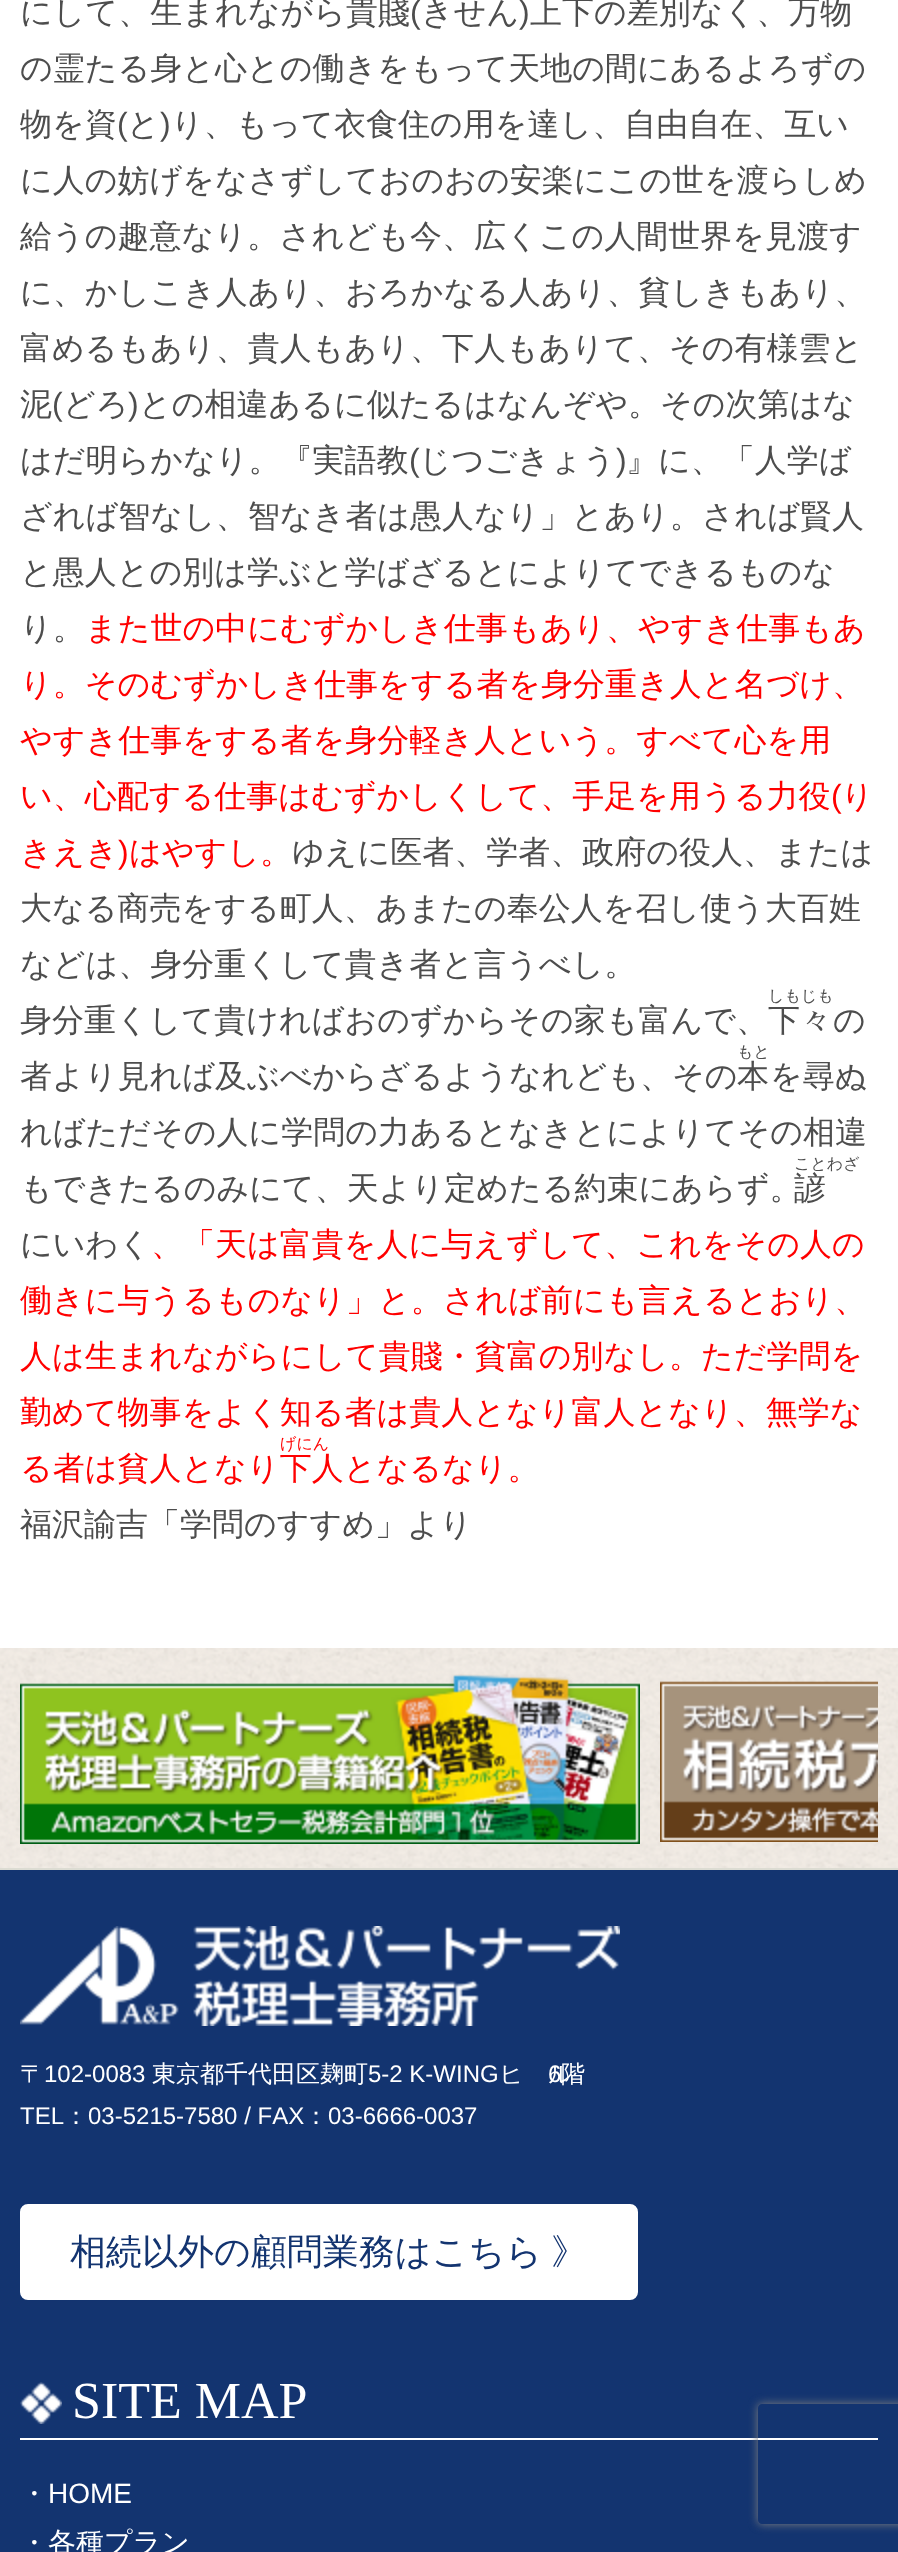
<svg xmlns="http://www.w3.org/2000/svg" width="898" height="2552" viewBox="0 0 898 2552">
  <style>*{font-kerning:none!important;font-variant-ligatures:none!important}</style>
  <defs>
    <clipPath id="clip1"><path d="M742 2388H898V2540H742ZM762 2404H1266C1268 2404 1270 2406 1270 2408V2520C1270 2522 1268 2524 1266 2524H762C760 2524 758 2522 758 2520V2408C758 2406 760 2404 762 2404Z" clip-rule="evenodd"/></clipPath>
  </defs>
  <rect width="100%" height="100%" fill="#fff"/>
  <image x="0" y="1648" width="898" height="220" href="img/1.png"/>
  <path d="M0 1868h898v2H0z" fill="#dcdcd3"/>
  <image x="20" y="1674" width="620" height="170" href="img/2.png"/>
  <image x="660" y="1681" width="218" height="161" href="img/3.png"/>
  <path d="M0 1870h898v682H0z" fill="#133470"/>
  <image x="20" y="1926" width="600" height="100" href="img/4.png"/>
  <rect x="21" y="2205" width="616" height="94" rx="7" fill="#fff" stroke="#fff" stroke-width="2"/>
  <image x="20" y="2382" width="42" height="42" href="img/5.png"/>
  <path d="M20 2438h858v2H20z" fill="#fff"/>
  <g clip-path="url(#clip1)">
    <rect x="758" y="2404" width="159" height="120" rx="4" fill="#808080" filter="blur(5px)"/>
  </g>
  <text x="20" y="23" font-family="WenQuanYi Zen Hei" font-size="32" font-weight="500" fill="#4d4d4d">にして、生まれながら貴賤</text>
  <text x="410" y="23" font-family="Liberation Sans" font-size="32" fill="#4d4d4d">(</text>
  <text x="421" y="23" font-family="WenQuanYi Zen Hei" font-size="32" font-weight="500" fill="#4d4d4d">きせん</text>
  <text x="519" y="23" font-family="Liberation Sans" font-size="32" fill="#4d4d4d">)</text>
  <g font-family="WenQuanYi Zen Hei" font-size="32" font-weight="500" fill="#4d4d4d">
    <text x="530" y="23">上下の差別なく、万物</text>
    <text x="20" y="79">の霊たる身と心との働きをもって天地の間にあるよろずの</text>
    <text x="20" y="135">物を資</text>
  </g>
  <text x="117" y="135" font-family="Liberation Sans" font-size="32" fill="#4d4d4d">(</text>
  <text x="127" y="135" font-family="WenQuanYi Zen Hei" font-size="32" font-weight="500" fill="#4d4d4d">と</text>
  <text x="160" y="135" font-family="Liberation Sans" font-size="32" fill="#4d4d4d">)</text>
  <g font-family="WenQuanYi Zen Hei" font-size="32" font-weight="500" fill="#4d4d4d">
    <text x="171" y="135">り、もって衣食住の用を達し、自由自在、互い</text>
    <text x="20" y="191">に人の妨げをなさずしておのおの安楽にこの世を渡らしめ</text>
    <text x="20" y="247">給うの趣意なり。されども今、広くこの人間世界を見渡す</text>
    <text x="20" y="303">に、かしこき人あり、おろかなる人あり、貧しきもあり、</text>
    <text x="20" y="359">富めるもあり、貴人もあり、下人もありて、その有様雲と</text>
    <text x="20" y="415">泥</text>
  </g>
  <text x="52" y="415" font-family="Liberation Sans" font-size="32" fill="#4d4d4d">(</text>
  <text x="63" y="415" font-family="WenQuanYi Zen Hei" font-size="32" font-weight="500" fill="#4d4d4d">どろ</text>
  <text x="128" y="415" font-family="Liberation Sans" font-size="32" fill="#4d4d4d">)</text>
  <g font-family="WenQuanYi Zen Hei" font-size="32" font-weight="500" fill="#4d4d4d">
    <text x="139" y="415">との相違あるに似たるはなんぞや。その次第はな</text>
    <text x="20" y="471">はだ明らかなり。『実語教</text>
  </g>
  <text x="409" y="471" font-family="Liberation Sans" font-size="32" fill="#4d4d4d">(</text>
  <text x="419" y="471" font-family="WenQuanYi Zen Hei" font-size="32" font-weight="500" fill="#4d4d4d">じつごきょう</text>
  <text x="616" y="471" font-family="Liberation Sans" font-size="32" fill="#4d4d4d">)</text>
  <g font-family="WenQuanYi Zen Hei" font-size="32" font-weight="500" fill="#4d4d4d">
    <text x="626" y="471">』に、「人学ば</text>
    <text x="20" y="527">ざれば智なし、智なき者は愚人なり」とあり。されば賢人</text>
    <text x="20" y="583">と愚人との別は学ぶと学ばざるとによりてできるものな</text>
    <text x="20" y="639">り。</text>
  </g>
  <g font-family="WenQuanYi Zen Hei" font-size="32" font-weight="500" fill="#f00">
    <text x="85" y="639">また世の中にむずかしき仕事もあり、やすき仕事もあ</text>
    <text x="20" y="695">り。そのむずかしき仕事をする者を身分重き人と名づけ、</text>
    <text x="20" y="751">やすき仕事をする者を身分軽き人という。すべて心を用</text>
    <text x="20" y="807">い、心配する仕事はむずかしくして、手足を用うる力役</text>
  </g>
  <text x="831" y="807" font-family="Liberation Sans" font-size="32" fill="#f00">(</text>
  <g font-family="WenQuanYi Zen Hei" font-size="32" font-weight="500" fill="#f00">
    <text x="841" y="807">り</text>
    <text x="20" y="863">きえき</text>
  </g>
  <text x="118" y="863" font-family="Liberation Sans" font-size="32" fill="#f00">)</text>
  <text x="129" y="863" font-family="WenQuanYi Zen Hei" font-size="32" font-weight="500" fill="#f00">はやすし。</text>
  <g font-family="WenQuanYi Zen Hei" font-size="32" font-weight="500" fill="#4d4d4d">
    <text x="292" y="863">ゆえに医者、学者、政府の役人、または</text>
    <text x="20" y="919">大なる商売をする町人、あまたの奉公人を召し使う大百姓</text>
    <text x="20" y="975">などは、身分重くして貴き者と言うべし。</text>
    <text x="20" y="1031">身分重くして貴ければおのずからその家も富んで、</text>
  </g>
  <text x="768" y="1001" font-family="WenQuanYi Zen Hei" font-size="16" font-weight="500" fill="#4d4d4d">しもじも</text>
  <g font-family="WenQuanYi Zen Hei" font-size="32" font-weight="500" fill="#4d4d4d">
    <text x="768" y="1031">下々</text>
    <text x="833" y="1031">の</text>
    <text x="20" y="1087">者より見れば及ぶべからざるようなれども、その</text>
  </g>
  <text x="737" y="1057" font-family="WenQuanYi Zen Hei" font-size="16" font-weight="500" fill="#4d4d4d">もと</text>
  <g font-family="WenQuanYi Zen Hei" font-size="32" font-weight="500" fill="#4d4d4d">
    <text x="737" y="1087">本</text>
    <text x="770" y="1087">を尋ぬ</text>
    <text x="20" y="1143">ればただその人に学問の力あるとなきとによりてその相違</text>
    <text x="20" y="1199">もできたるのみにて、天より定めたる約束にあらず。</text>
  </g>
  <text x="794" y="1169" font-family="WenQuanYi Zen Hei" font-size="16" font-weight="500" fill="#4d4d4d">ことわざ</text>
  <text x="794" y="1199" font-family="WenQuanYi Zen Hei" font-size="32" font-weight="500" fill="#4d4d4d">諺</text>
  <g font-family="WenQuanYi Zen Hei" font-size="32" font-weight="500" fill="#f00">
    <text x="151" y="1255">、「天は富貴を人に与えずして、これをその人の</text>
    <text x="20" y="1311">働きに与うるものなり」と。されば前にも言えるとおり、</text>
    <text x="20" y="1367">人は生まれながらにして貴賤・貧富の別なし。ただ学問を</text>
    <text x="20" y="1423">勤めて物事をよく知る者は貴人となり富人となり、無学な</text>
  </g>
  <text x="280" y="1449" font-family="WenQuanYi Zen Hei" font-size="16" font-weight="500" fill="#f00">げにん</text>
  <text x="20" y="1479" font-family="WenQuanYi Zen Hei" font-size="32" font-weight="500" fill="#f00">る者は貧人となり下人となるなり。</text>
  <g font-family="WenQuanYi Zen Hei" font-size="32" font-weight="500" fill="#4d4d4d">
    <text x="20" y="1255">にいわく</text>
    <text x="20" y="1535">福沢諭吉「学問のすすめ」より</text>
  </g>
  <text x="20" y="2082" font-family="WenQuanYi Zen Hei" font-size="24" font-weight="500" fill="#fff">〒</text>
  <text x="44" y="2082" font-family="Liberation Sans" font-size="24" fill="#fff">102-0083</text>
  <text x="152" y="2082" font-family="WenQuanYi Zen Hei" font-size="24" font-weight="500" fill="#fff">東京都千代田区麹町</text>
  <text x="368" y="2082" font-family="Liberation Sans" font-size="24" fill="#fff">5-2 K-WING</text>
  <text x="499" y="2082" font-family="WenQuanYi Zen Hei" font-size="24" font-weight="500" fill="#fff">ビル</text>
  <text x="548" y="2082" font-family="Liberation Sans" font-size="24" fill="#fff">6</text>
  <text x="561" y="2082" font-family="WenQuanYi Zen Hei" font-size="24" font-weight="500" fill="#fff">階</text>
  <text x="20" y="2124" font-family="Liberation Sans" font-size="24" fill="#fff">TEL</text>
  <text x="64" y="2124" font-family="WenQuanYi Zen Hei" font-size="24" font-weight="500" fill="#fff">：</text>
  <text x="88" y="2124" font-family="Liberation Sans" font-size="24" fill="#fff">03-5215-7580 / FAX</text>
  <text x="304" y="2124" font-family="WenQuanYi Zen Hei" font-size="24" font-weight="500" fill="#fff">：</text>
  <text x="328" y="2124" font-family="Liberation Sans" font-size="24" fill="#fff">03-6666-0037</text>
  <text x="70" y="2264" word-spacing="-2" font-family="WenQuanYi Zen Hei" font-size="36" font-weight="500" fill="#133470">相続以外の顧問業務はこちら 》</text>
  <text x="72" y="2418" font-family="Liberation Serif" font-size="52" fill="#fff">SITE MAP</text>
  <text x="20" y="2503" font-family="WenQuanYi Zen Hei" font-size="28" font-weight="500" fill="#fff">・</text>
  <text x="48" y="2503" font-family="Liberation Sans" font-size="28" fill="#fff">HOME</text>
  <text x="20" y="2552" font-family="WenQuanYi Zen Hei" font-size="28" font-weight="500" fill="#fff">・各種プラン</text>
</svg>
